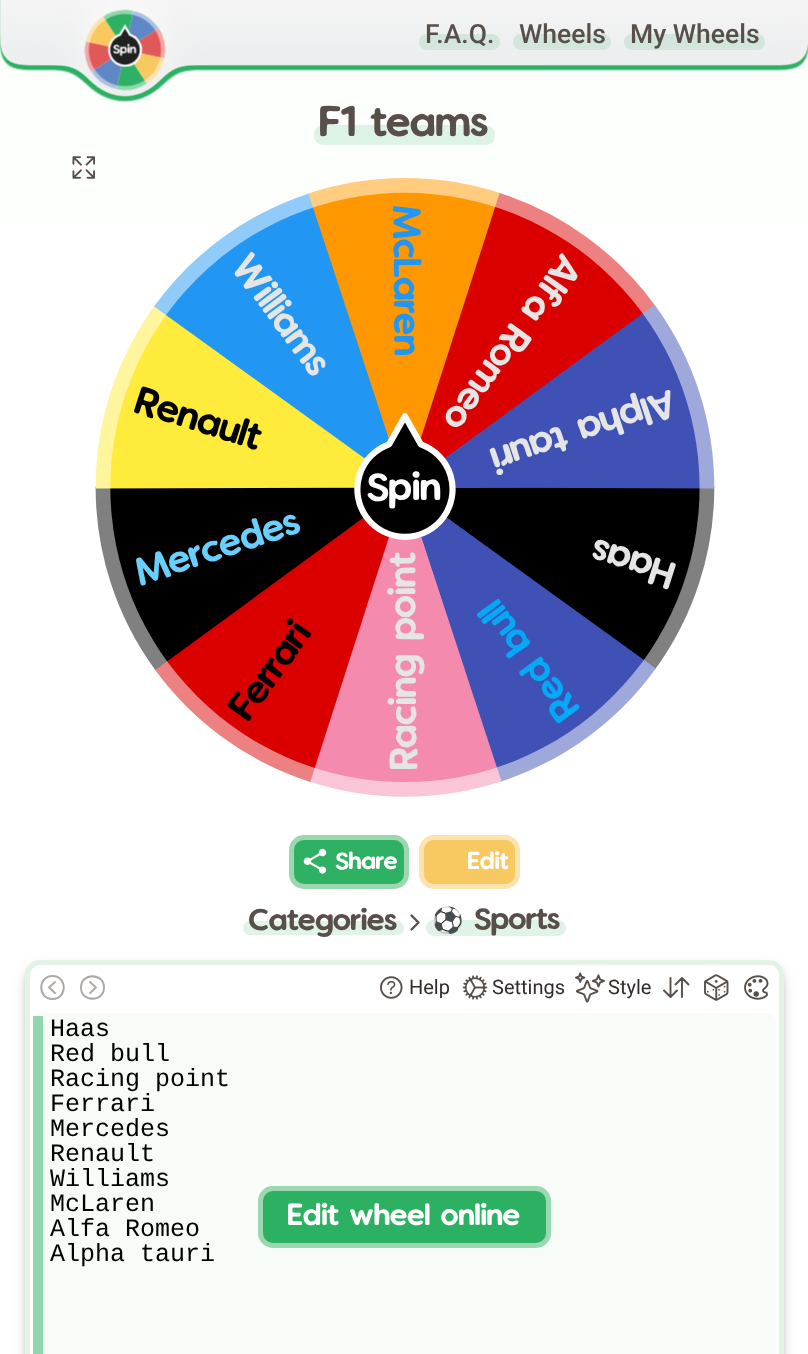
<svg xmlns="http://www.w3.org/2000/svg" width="808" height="1354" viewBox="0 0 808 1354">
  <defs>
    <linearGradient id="g1" gradientUnits="userSpaceOnUse" x1="404" y1="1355" x2="404" y2="0"><stop offset="0" stop-color="#fff"/><stop offset="1" stop-color="#fcfffc"/></linearGradient>
    <clipPath id="clip1"><path d="M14 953H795V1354H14ZM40 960H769C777.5 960 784 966.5 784 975V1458C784 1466.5 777.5 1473 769 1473H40C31.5 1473 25 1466.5 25 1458V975C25 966.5 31.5 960 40 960Z" clip-rule="evenodd"/></clipPath>
    <clipPath id="clip2"><path d="M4 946H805V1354H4ZM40 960H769C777.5 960 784 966.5 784 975V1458C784 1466.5 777.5 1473 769 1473H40C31.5 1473 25 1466.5 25 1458V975C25 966.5 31.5 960 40 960Z" clip-rule="evenodd"/></clipPath>
  </defs>
  <rect width="100%" height="100%" fill="#fff"/>
  <path d="M0 0h808v226H0z" fill="url(#g1)"/>
  <image x="0" y="0" width="808" height="102" href="img/1.png"/>
  <rect x="419" y="34" width="81" height="16" rx="8" fill="#d2e6db"/>
  <rect x="513" y="34" width="98" height="16" rx="8" fill="#d2e6db"/>
  <rect x="624" y="34" width="141" height="16" rx="8" fill="#d2e6db"/>
  <rect x="314" y="125" width="181" height="20" rx="9" fill="#ddf3e5"/>
  <image x="72" y="156" width="23" height="23" href="img/2.png"/>
  <image x="95" y="178" width="620" height="619" href="img/3.png"/>
  <image x="95" y="178" width="620" height="619" href="img/4.png"/>
  <rect x="291.5" y="837.5" width="115" height="49" rx="12.5" fill="#2eb163" stroke="#9bd7af" stroke-width="5"/>
  <image x="303" y="848" width="24" height="26" href="img/5.png"/>
  <rect x="421.5" y="837.5" width="96" height="49" rx="12.5" fill="#f8c960" stroke="#fce3af" stroke-width="5"/>
  <rect x="243" y="921" width="161" height="14" rx="7" fill="#dff3e7"/>
  <path d="M411.5 915.5L418.5 922.5L411.5 929.5" fill="none" stroke="#584f4a" stroke-width="2.3" stroke-linecap="round" stroke-linejoin="round"/>
  <rect x="426" y="920" width="140" height="16" rx="8" fill="#dff3e7"/>
  <g clip-path="url(#clip1)">
    <rect x="29" y="968" width="751" height="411" rx="11" fill="#0000004d" filter="blur(4.5px)"/>
  </g>
  <g clip-path="url(#clip2)">
    <rect x="28" y="970" width="753" height="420" rx="13" fill="#32325d40" filter="blur(7.5px)"/>
  </g>
  <rect x="27.5" y="962.5" width="754" height="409" rx="12.5" fill="none" stroke="#e2f3e6" stroke-width="5"/>
  <path d="M52.5 976C37.5 976 37.5 999 52.5 999C67.5 999 67.5 976 52.5 976Z" fill="none" stroke="#aba7a4" stroke-width="1.9"/>
  <path d="M55 993L49 987.5L55 982" fill="none" stroke="#aba7a4" stroke-width="1.9" stroke-linecap="round" stroke-linejoin="round"/>
  <path d="M81 987.5C81 1002.5 104 1002.5 104 987.5C104 972.5 81 972.5 81 987.5Z" fill="none" stroke="#aba7a4" stroke-width="1.9"/>
  <path d="M90 993L96 987.5L90 982" fill="none" stroke="#aba7a4" stroke-width="1.9" stroke-linecap="round" stroke-linejoin="round"/>
  <image x="380" y="976" width="23" height="23" href="img/6.png"/>
  <image x="462" y="975" width="26" height="25" href="img/7.png"/>
  <image x="575" y="972" width="30" height="31" href="img/8.png"/>
  <path d="M688.5 984.5L682 978L675.5 984.5M682 979V997M664 990.5L670.5 997L677 990.5M670.5 996V978" fill="none" stroke="#584f4a" stroke-width="1.9" stroke-linecap="round" stroke-linejoin="round"/>
  <image x="704" y="974" width="25" height="27" href="img/9.png"/>
  <image x="744" y="975" width="25" height="25" href="img/10.png"/>
  <rect x="33" y="1013" width="743" height="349" rx="8" fill="#f7fcf8"/>
  <path d="M33 1016h10v338H33z" fill="#2bb26380"/>
  <rect x="260.5" y="1188.5" width="288" height="57" rx="12.5" fill="#2cb163" stroke="#9bd7af" stroke-width="5"/>
  <g font-family="Roboto" font-size="26.5" font-weight="500" fill="#584f4a">
    <text x="425" y="43">F.A.Q.</text>
    <text x="519" y="43">Wheels</text>
    <text x="630" y="43">My Wheels</text>
  </g>
  <text x="320" y="136" font-family="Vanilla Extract" font-size="35" fill="#584f4a">F1 teams</text>
  <g font-family="Vanilla Extract" font-size="20" fill="#fff">
    <text x="336" y="869">Share</text>
    <text x="468" y="869">Edit</text>
  </g>
  <text x="249" y="930" font-family="Vanilla Extract" font-size="25.25" fill="#584f4a">Categories</text>
  <text x="432" y="929" font-family="Noto Color Emoji" font-size="25.25" fill="#584f4a">⚽</text>
  <text x="475" y="929" font-family="Vanilla Extract" font-size="25.25" fill="#584f4a">Sports</text>
  <g font-family="Roboto" font-size="20" fill="#312c2a">
    <text x="409" y="994">Help</text>
    <text x="492" y="994">Settings</text>
    <text x="608" y="994">Style</text>
  </g>
  <g font-family="Liberation Mono" font-size="25" fill="#000">
    <text x="50" y="1036">Haas</text>
    <text x="50" y="1061">Red bull</text>
    <text x="50" y="1086">Racing point</text>
    <text x="50" y="1111">Ferrari</text>
    <text x="50" y="1136">Mercedes</text>
    <text x="50" y="1161">Renault</text>
    <text x="50" y="1186">Williams</text>
    <text x="50" y="1211">McLaren</text>
    <text x="50" y="1236">Alfa Romeo</text>
    <text x="50" y="1261">Alpha tauri</text>
  </g>
  <text x="288" y="1225" font-family="Vanilla Extract" font-size="25" fill="#fff">Edit wheel online</text>
</svg>
